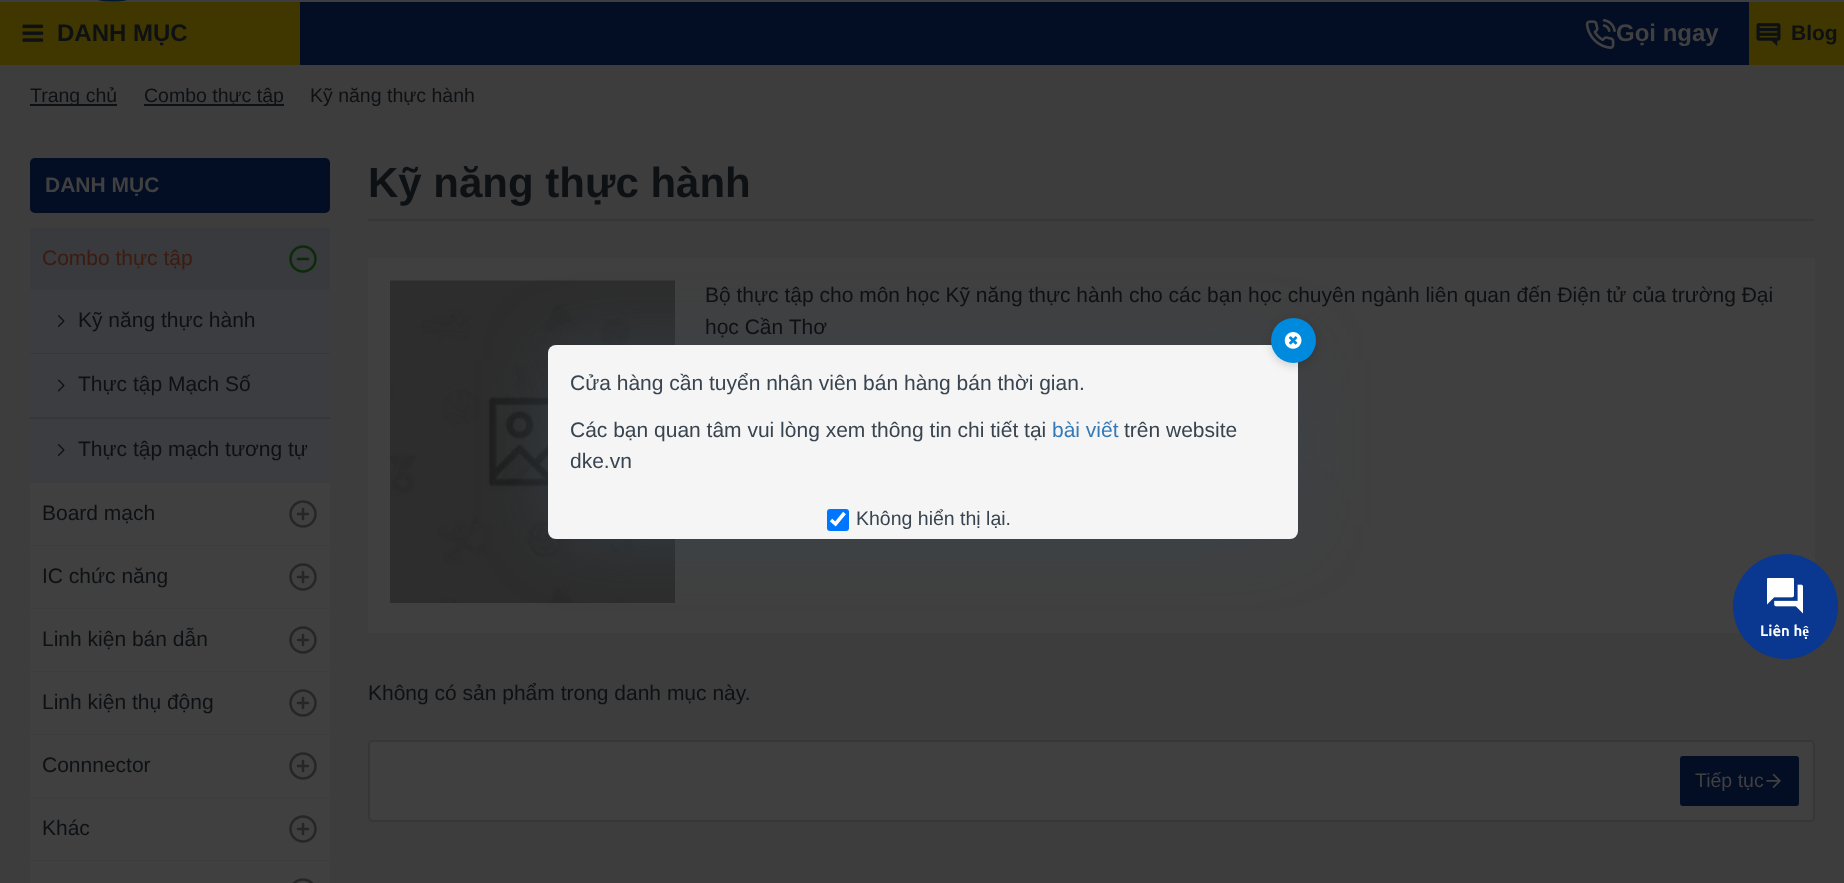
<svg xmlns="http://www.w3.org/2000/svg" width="1844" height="883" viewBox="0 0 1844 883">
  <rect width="100%" height="100%" fill="#3d3d3d"/>
  <path d="M0 0h1844v2H0z" fill="#3e3e40"/>
  <image x="98" y="0" width="30" height="2" href="img/1.png"/>
  <path d="M300 2h1449v63H300z" fill="#030e24"/>
  <path d="M0 2h300v63H0z" fill="#403600"/>
  <image x="22" y="24" width="22" height="18" href="img/2.png"/>
  <image x="1585" y="19" width="31" height="30" href="img/3.png"/>
  <path d="M1749 2h95v63H1749z" fill="#403600"/>
  <image x="1756" y="23" width="25" height="24" href="img/4.png"/>
  <path d="M30 104h87v2H30z" fill="#0e1114"/>
  <path d="M144 104h140v2H144z" fill="#0e1114"/>
  <rect x="30" y="158" width="300" height="55" rx="5" fill="#030e24"/>
  <path d="M30 228h300v62H30z" fill="#383a3e"/>
  <image x="289" y="245" width="28" height="28" href="img/5.png"/>
  <path d="M30 290h300v63H30z" fill="#3b3d40"/>
  <image x="57" y="315" width="8" height="12" href="img/6.png"/>
  <path d="M30 353h300v1H30z" fill="#373737"/>
  <path d="M30 354h300v63H30z" fill="#3b3d40"/>
  <image x="57" y="379" width="8" height="13" href="img/7.png"/>
  <path d="M30 417h300v2H30z" fill="#373737"/>
  <path d="M30 419h300v63H30z" fill="#3b3d40"/>
  <image x="57" y="444" width="8" height="12" href="img/6.png"/>
  <path d="M30 483h300v62H30z" fill="#404040"/>
  <image x="289" y="500" width="28" height="28" href="img/8.png"/>
  <path d="M30 546h300v62H30z" fill="#404040"/>
  <image x="289" y="563" width="28" height="28" href="img/8.png"/>
  <path d="M30 609h300v62H30z" fill="#404040"/>
  <image x="289" y="626" width="28" height="28" href="img/8.png"/>
  <path d="M30 672h300v62H30z" fill="#404040"/>
  <image x="289" y="689" width="28" height="28" href="img/8.png"/>
  <path d="M30 735h300v62H30z" fill="#404040"/>
  <image x="289" y="752" width="28" height="28" href="img/8.png"/>
  <path d="M30 798h300v62H30z" fill="#404040"/>
  <image x="289" y="815" width="28" height="28" href="img/8.png"/>
  <path d="M30 861h300v22H30z" fill="#404040"/>
  <image x="292" y="878" width="22" height="5" href="img/9.png"/>
  <path d="M368 219h1447v2H368z" fill="#373737"/>
  <path d="M368 258h1447v375H368z" fill="#404040"/>
  <image x="390" y="280" width="285" height="323" href="img/10.png"/>
  <rect x="369" y="741" width="1445" height="80" rx="4" fill="#404040" stroke="#373737" stroke-width="2"/>
  <rect x="1680" y="756" width="119" height="50" rx="3" fill="#030e24"/>
  <image x="1766" y="773" width="15" height="16" href="img/11.png"/>
  <path d="M563 360h720v164H563z" fill="#38444f" filter="blur(37.5px)"/>
  <rect x="548" y="345" width="750" height="194" rx="8" fill="#f5f5f5"/>
  <rect x="1271" y="321" width="45" height="45" rx="22.5" fill="#00000026" filter="blur(4px)"/>
  <circle cx="1293.5" cy="340.5" r="22.5" fill="#008add"/>
  <image x="1284" y="332" width="18" height="17" href="img/12.png"/>
  <rect x="827" y="509" width="22" height="22" rx="3" fill="#0075ff"/>
  <path d="M831 520L835.5 524L844.5 513" fill="none" stroke="#fff" stroke-width="3.6"/>
  <circle cx="1785.5" cy="606.5" r="52.5" fill="#0a378f"/>
  <image x="1767" y="578" width="36" height="36" href="img/13.png"/>
  <text x="57" y="41" font-family="Liberation Sans" font-size="24" font-weight="bold" fill="#0e1114">DANH MỤC</text>
  <text x="1616" y="41" font-family="Liberation Sans" font-size="24" font-weight="bold" fill="#404040">Gọi ngay</text>
  <text x="1791" y="40" font-family="Liberation Sans" font-size="21" font-weight="bold" fill="#0e1114">Blog</text>
  <g font-family="Liberation Sans" font-size="19.5" fill="#0e1114">
    <text x="30" y="102">Trang chủ</text>
    <text x="144" y="102">Combo thực tập</text>
    <text x="310" y="102">Kỹ năng thực hành</text>
  </g>
  <text x="45" y="192" font-family="Liberation Sans" font-size="21" font-weight="bold" fill="#404040">DANH MỤC</text>
  <text x="42" y="265" font-family="Liberation Sans" font-size="21" fill="#3d1b0e">Combo thực tập</text>
  <g font-family="Liberation Sans" font-size="21" fill="#0e1114">
    <text x="78" y="327">Kỹ năng thực hành</text>
    <text x="78" y="391">Thực tập Mạch Số</text>
    <text x="78" y="456">Thực tập mạch tương tự</text>
    <text x="42" y="520">Board mạch</text>
    <text x="42" y="583">IC chức năng</text>
    <text x="42" y="646">Linh kiện bán dẫn</text>
    <text x="42" y="709">Linh kiện thụ động</text>
    <text x="42" y="772">Connnector</text>
    <text x="42" y="835">Khác</text>
  </g>
  <text x="368" y="197" font-family="Liberation Sans" font-size="42" font-weight="bold" fill="#0e1114">Kỹ năng thực hành</text>
  <g font-family="Liberation Sans" font-size="21" fill="#0e1114">
    <text x="705" y="302">Bộ thực tập cho môn học Kỹ năng thực hành cho các bạn học chuyên ngành liên quan đến Điện tử của trường Đại</text>
    <text x="705" y="334">học Cần Thơ</text>
    <text x="368" y="700">Không có sản phẩm trong danh mục này.</text>
  </g>
  <text x="1695" y="787" font-family="Liberation Sans" font-size="19.5" fill="#404040">Tiếp tục</text>
  <g font-family="Liberation Sans" font-size="21" fill="#38444f">
    <text x="570" y="390">Cửa hàng cần tuyển nhân viên bán hàng bán thời gian.</text>
    <text x="570" y="437">Các bạn quan tâm vui lòng xem thông tin chi tiết tại</text>
  </g>
  <text x="1052" y="437" font-family="Liberation Sans" font-size="21" fill="#337ab7">bài viết</text>
  <g font-family="Liberation Sans" font-size="21" fill="#38444f">
    <text x="1124" y="437">trên website</text>
    <text x="570" y="468">dke.vn</text>
  </g>
  <text x="856" y="525" font-family="Liberation Sans" font-size="19.5" fill="#38444f">Không hiển thị lại.</text>
  <text x="1760" y="636" font-family="Ubuntu" font-size="15" font-weight="bold" fill="#fff">Liên hệ</text>
</svg>
